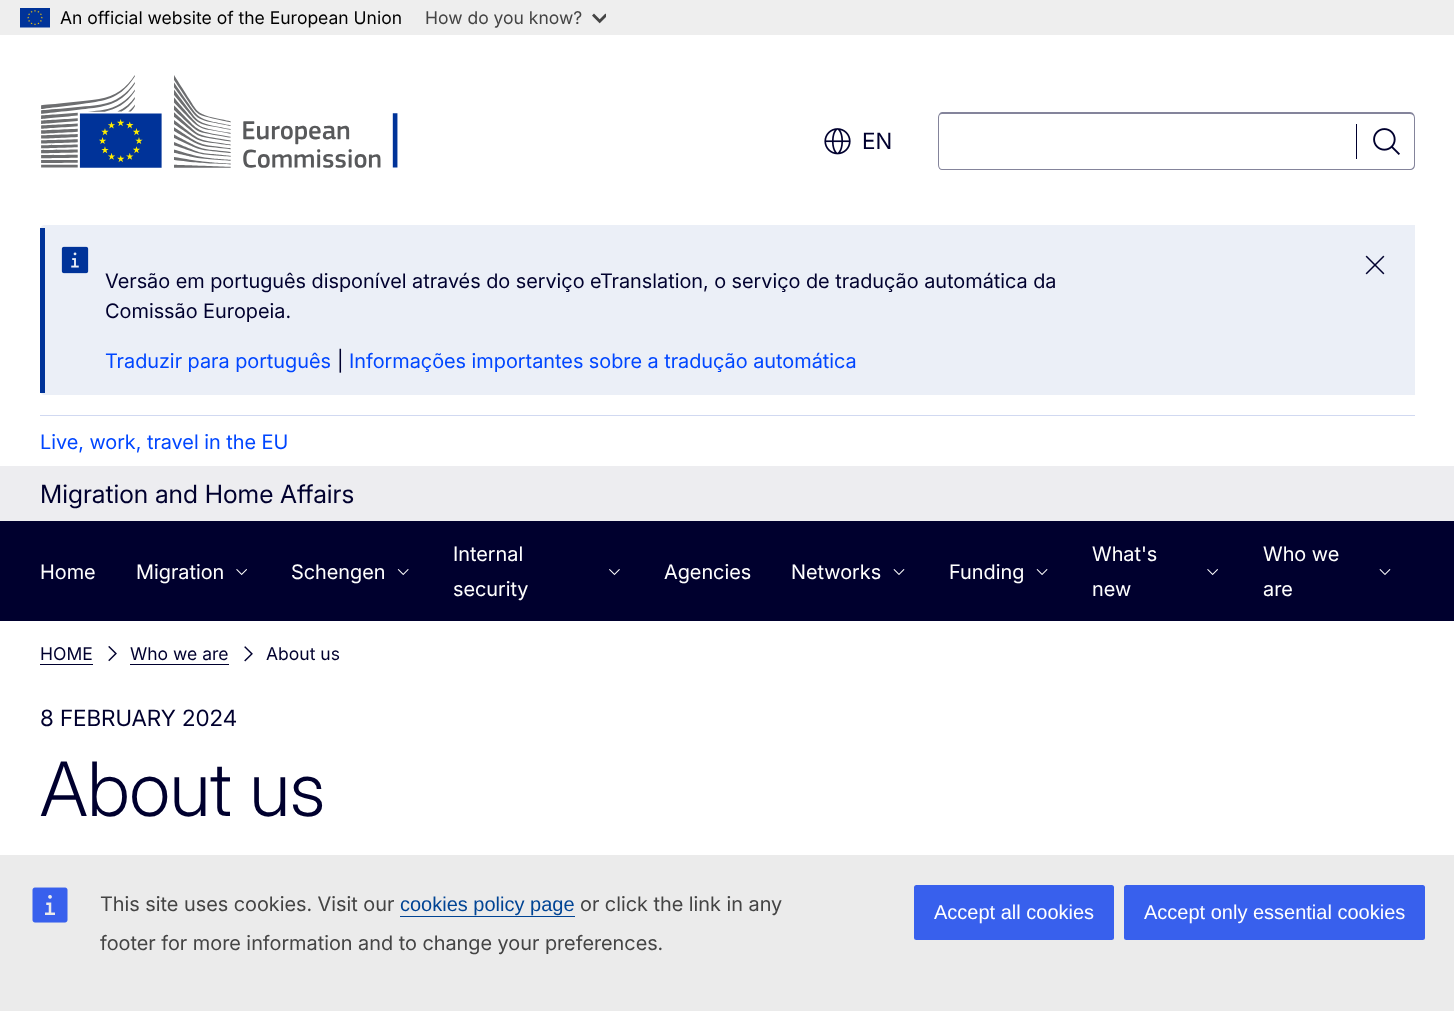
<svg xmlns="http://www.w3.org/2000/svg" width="1454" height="1011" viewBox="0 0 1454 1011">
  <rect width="100%" height="100%" fill="#fff"/>
  <path d="M0 0h1454v35H0z" fill="#eee"/>
  <image x="20" y="8" width="30" height="20" href="img/1.png"/>
  <image x="592" y="13" width="14" height="11" href="img/2.png"/>
  <image x="41" y="75" width="357" height="93" href="img/3.png"/>
  <image x="824" y="128" width="27" height="27" href="img/4.png"/>
  <path d="M942 112H1358V170H942C940 170 938 168 938 165V118C938 115 940 112 942 112ZM942 114H1358V169H942C940 169 939 167 939 165V118C939 115 940 114 942 114Z" fill="#84849b" fill-rule="evenodd"/>
  <path d="M1358 112H1410C1413 112 1415 115 1415 118V165C1415 168 1413 170 1410 170H1358ZM1358 114H1410C1412 114 1414 115 1414 118V165C1414 167 1412 169 1410 169H1358Z" fill="#84849b" fill-rule="evenodd"/>
  <path d="M1356 124h1v35H1356z" fill="#00002e"/>
  <image x="1373" y="128" width="27" height="27" href="img/5.png"/>
  <path d="M45 225H1415V395H45C42 395 40 393 40 390V230C40 227 42 225 45 225Z" fill="#ebeff7"/>
  <path d="M40 228h5v165H40z" fill="#039"/>
  <image x="61" y="246" width="28" height="28" href="img/6.png"/>
  <image x="1365" y="255" width="20" height="20" href="img/7.png"/>
  <path d="M40 415h1375v1H40z" fill="#d1d9f1"/>
  <path d="M0 466h1454v55H0z" fill="#ededf0"/>
  <path d="M0 521h1454v100H0z" fill="#00002e"/>
  <image x="236" y="569" width="11" height="7" href="img/8.png"/>
  <image x="397" y="569" width="12" height="7" href="img/9.png"/>
  <image x="609" y="569" width="11" height="7" href="img/10.png"/>
  <image x="893" y="569" width="12" height="6" href="img/11.png"/>
  <image x="1036" y="569" width="12" height="6" href="img/12.png"/>
  <image x="1207" y="569" width="11" height="7" href="img/13.png"/>
  <image x="1379" y="569" width="12" height="6" href="img/14.png"/>
  <path d="M40 664h53v1H40z" fill="#00002e"/>
  <image x="108" y="646" width="9" height="16" href="img/15.png"/>
  <path d="M130 664h99v1H130z" fill="#00002e"/>
  <image x="244" y="646" width="9" height="16" href="img/16.png"/>
  <path d="M0 855h1454v156H0z" fill="#ebebeb"/>
  <image x="32" y="887" width="36" height="36" href="img/17.png"/>
  <path d="M400 916h175v1H400z" fill="#004494"/>
  <rect x="914" y="885" width="200" height="55" rx="2.5" fill="#3860ed"/>
  <rect x="1124" y="885" width="301" height="55" rx="2.5" fill="#3860ed"/>
  <text x="60" y="24" font-family="Inter" font-size="17.5" fill="#000">An official website of the European Union</text>
  <text x="425" y="24" font-family="Inter" font-size="17.5" fill="#444">How do you know?</text>
  <text x="862" y="149" font-family="'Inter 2'" font-size="22.5" fill="#00002e">EN</text>
  <g font-family="'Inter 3'" font-size="20" fill="#00002e">
    <text x="105" y="288">Versão em português disponível através do serviço eTranslation, o serviço de tradução automática da</text>
    <text x="105" y="318">Comissão Europeia.</text>
  </g>
  <text x="105" y="368" font-family="'Inter 3'" font-size="20" fill="#0046ff">Traduzir para português</text>
  <text x="337" y="368" font-family="'Inter 3'" font-size="20" fill="#00002e">|</text>
  <g font-family="'Inter 3'" font-size="20" fill="#0046ff">
    <text x="349" y="368">Informações importantes sobre a tradução automática</text>
    <text x="40" y="449">Live, work, travel in the EU</text>
  </g>
  <text x="40" y="503" font-family="'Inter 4'" font-size="25" fill="#00002e">Migration and Home Affairs</text>
  <g font-family="'Inter 3'" font-size="20" fill="#fff">
    <text x="40" y="579">Home</text>
    <text x="136" y="579">Migration</text>
    <text x="291" y="579">Schengen</text>
    <text x="453" y="561">Internal</text>
    <text x="453" y="596">security</text>
    <text x="664" y="579">Agencies</text>
    <text x="791" y="579">Networks</text>
    <text x="949" y="579">Funding</text>
    <text x="1092" y="561">What's</text>
    <text x="1092" y="596">new</text>
    <text x="1263" y="561">Who we</text>
    <text x="1263" y="596">are</text>
  </g>
  <g font-family="Inter" font-size="17.5" fill="#00002e">
    <text x="40" y="660">HOME</text>
    <text x="130" y="660">Who we are</text>
    <text x="266" y="660">About us</text>
  </g>
  <text x="40" y="726" font-family="'Inter 2'" font-size="22.5" fill="#00002e">8 FEBRUARY 2024</text>
  <text x="40" y="816" font-family="Inter" font-size="75" font-weight="300" fill="#00002e">About us</text>
  <text x="100" y="911" font-family="'Inter 3'" font-size="20" fill="#444">This site uses cookies. Visit our</text>
  <text x="400" y="911" font-family="Liberation Sans" font-size="20" fill="#004494">cookies policy page</text>
  <g font-family="'Inter 3'" font-size="20" fill="#444">
    <text x="580" y="911">or click the link in any</text>
    <text x="100" y="950">footer for more information and to change your preferences.</text>
  </g>
  <g font-family="Liberation Sans" font-size="20" fill="#fff">
    <text x="934" y="919">Accept all cookies</text>
    <text x="1144" y="919">Accept only essential cookies</text>
  </g>
</svg>
